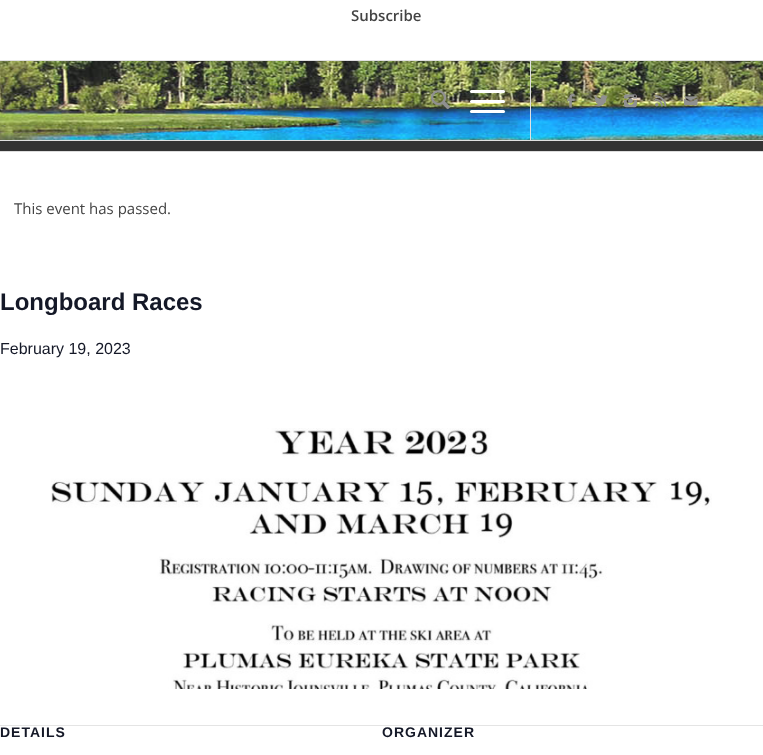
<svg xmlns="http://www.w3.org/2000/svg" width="763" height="755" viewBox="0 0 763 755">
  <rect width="100%" height="100%" fill="#333"/>
  <path d="M0 0h763v60H0z" fill="#fff"/>
  <image x="0" y="61" width="763" height="79" href="img/7.png"/>
  <path d="M0 61h763v79H0z" fill="#ffffff1a"/>
  <path d="M530 60h1v80H530z" fill="#e1e1e1"/>
  <path d="M0 60h763v1H0z" fill="#e1e1e1"/>
  <path d="M0 140h763v1H0z" fill="#e1e1e1"/>
  <image x="431" y="90" width="19" height="20" href="img/1.png"/>
  <rect x="470" y="100" width="35" height="3" rx="1.5" fill="#fff"/>
  <rect x="470" y="90" width="35" height="3" rx="1.5" fill="#fff"/>
  <rect x="470" y="110" width="35" height="3" rx="1.5" fill="#fff"/>
  <image x="567" y="94" width="8" height="14" href="img/2.png"/>
  <image x="594" y="95" width="14" height="12" href="img/3.png"/>
  <image x="624" y="94" width="13" height="14" href="img/4.png"/>
  <image x="655" y="95" width="12" height="12" href="img/5.png"/>
  <image x="684" y="96" width="14" height="10" href="img/6.png"/>
  <path d="M0 152h763v603H0z" fill="#fff"/>
  <path d="M0 151h763v1H0z" fill="#ddd"/>
  <image x="51" y="428" width="661" height="261" href="img/8.png"/>
  <path d="M0 725h763v1H0z" fill="#e4e4e4"/>
  <text x="351" y="21" font-family="Open Sans" font-size="15" font-weight="600" fill="#444">Subscribe</text>
  <text x="14" y="214" font-family="Open Sans" font-size="15" fill="#444">This event has passed.</text>
  <text x="0" y="310" font-family="Liberation Sans" font-size="24" font-weight="bold" fill="#141827">Longboard Races</text>
  <text x="0" y="354" font-family="Liberation Sans" font-size="16" fill="#141827">February 19, 2023</text>
  <g font-family="Liberation Sans" font-size="14" font-weight="bold" letter-spacing="1" fill="#141827">
    <text x="0" y="737">DETAILS</text>
    <text x="382" y="737">ORGANIZER</text>
  </g>
</svg>
